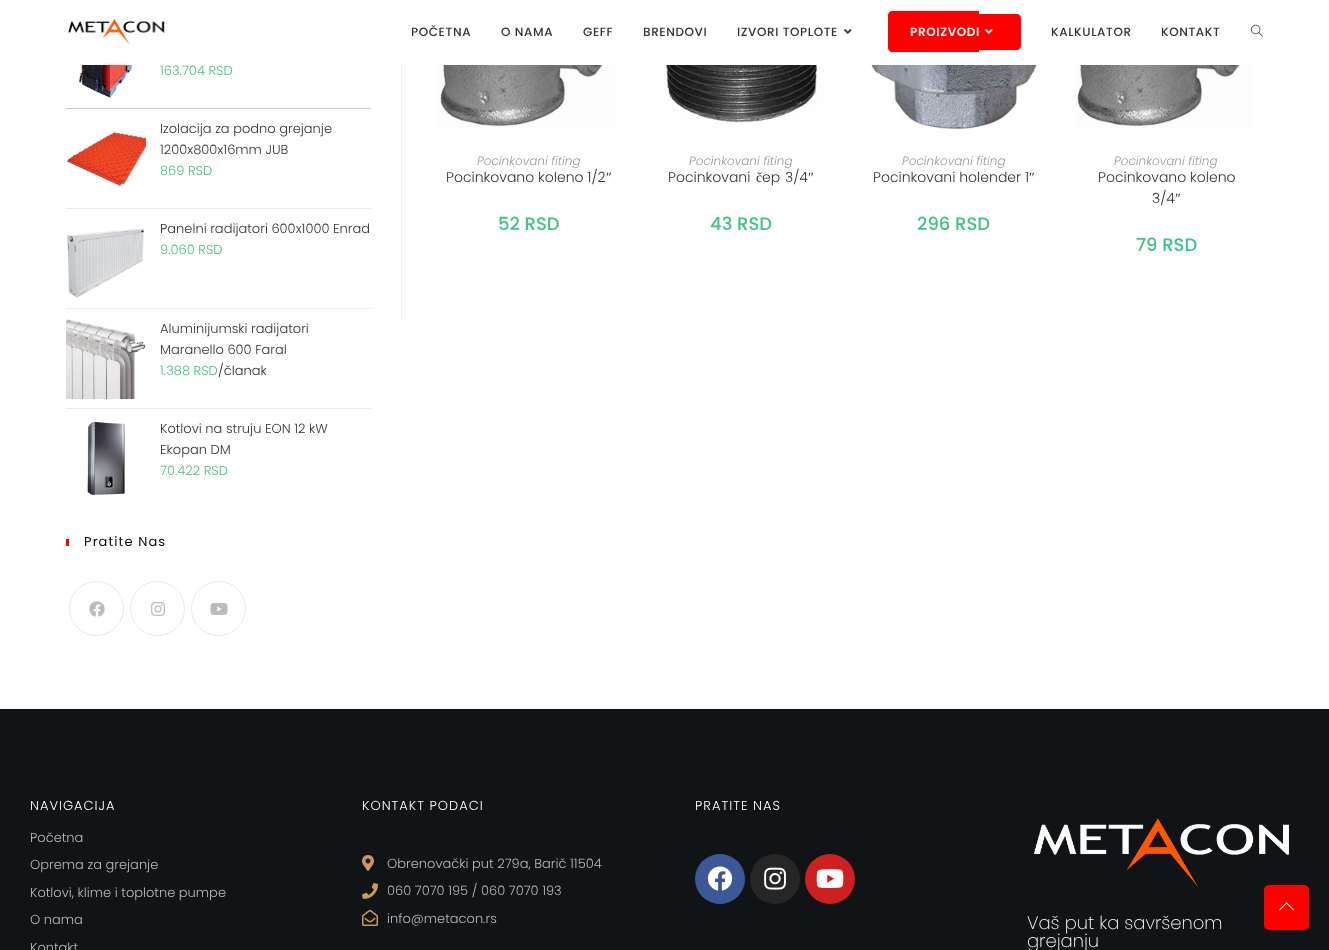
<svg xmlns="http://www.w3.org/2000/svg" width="1329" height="950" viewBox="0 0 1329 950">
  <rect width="100%" height="100%" fill="#fff"/>
  <image x="68" y="19" width="97" height="26" href="img/1.png"/>
  <image x="844" y="29" width="8" height="5" href="img/2.png"/>
  <path d="M892 11H979V52H892C890 52 888 50 888 48V15C888 13 890 11 892 11Z" fill="#f00"/>
  <path d="M979 14H1017C1019 14 1021 16 1021 18V46C1021 48 1019 50 1017 50H979Z" fill="#f00"/>
  <image x="985" y="29" width="8" height="5" href="img/3.png"/>
  <image x="1251" y="24" width="12" height="13" href="img/4.png"/>
  <path d="M66 108h305v1H66z" fill="#c6c6c6"/>
  <image x="79" y="65" width="54" height="33" href="img/5.png"/>
  <path d="M66 208h305v1H66z" fill="#eaeaea"/>
  <image x="67" y="132" width="79" height="54" href="img/6.png"/>
  <path d="M66 308h305v1H66z" fill="#eaeaea"/>
  <image x="67" y="228" width="77" height="70" href="img/7.png"/>
  <path d="M66 408h305v1H66z" fill="#eaeaea"/>
  <image x="66" y="319" width="80" height="80" href="img/8.png"/>
  <image x="87" y="421" width="38" height="74" href="img/9.png"/>
  <path d="M66 539h3v7H66z" fill="#f00"/>
  <circle cx="96.5" cy="608.5" r="27" fill="none" stroke="#e9e9e9"/>
  <image x="89" y="601" width="16" height="16" href="img/10.png"/>
  <circle cx="157.5" cy="608.5" r="27" fill="none" stroke="#e9e9e9"/>
  <image x="151" y="602" width="14" height="14" href="img/11.png"/>
  <circle cx="218.5" cy="608.5" r="27" fill="none" stroke="#e9e9e9"/>
  <image x="210" y="603" width="18" height="12" href="img/12.png"/>
  <path d="M401 65h1v254H401z" fill="#f1f1f1"/>
  <image x="438" y="65" width="179" height="63" href="img/13.png"/>
  <image x="650" y="65" width="180" height="59" href="img/14.png"/>
  <image x="868" y="65" width="174" height="65" href="img/15.png"/>
  <image x="1075" y="65" width="179" height="63" href="img/13.png"/>
  <path d="M0 709h1329v241H0z" fill="#111416"/>
  <image x="362" y="855" width="12" height="16" href="img/16.png"/>
  <image x="362" y="883" width="16" height="16" href="img/17.png"/>
  <image x="362" y="910" width="16" height="16" href="img/18.png"/>
  <circle cx="720" cy="879" r="25" fill="#3b5998"/>
  <image x="707" y="866" width="26" height="25" href="img/19.png"/>
  <circle cx="775" cy="879" r="25" fill="#262626"/>
  <image x="764" y="867" width="22" height="23" href="img/20.png"/>
  <circle cx="830" cy="879" r="25" fill="#cd201f"/>
  <image x="816" y="869" width="28" height="19" href="img/21.png"/>
  <image x="1034" y="818" width="255" height="69" href="img/22.png"/>
  <rect x="1264" y="885" width="45" height="45" rx="5" fill="#f00"/>
  <image x="1279" y="902" width="15" height="9" href="img/23.png"/>
  <g font-family="Poppins" font-size="12" font-weight="500" letter-spacing="0.6" fill="#333">
    <text x="411" y="36">POČETNA</text>
    <text x="501" y="36">O NAMA</text>
    <text x="583" y="36">GEFF</text>
    <text x="643" y="36">BRENDOVI</text>
    <text x="737" y="36">IZVORI TOPLOTE</text>
  </g>
  <text x="910" y="36" font-family="Poppins" font-size="12" font-weight="600" letter-spacing="0.6" fill="#fff">PROIZVODI</text>
  <g font-family="Poppins" font-size="12" font-weight="500" letter-spacing="0.6" fill="#333">
    <text x="1051" y="36">KALKULATOR</text>
    <text x="1161" y="36">KONTAKT</text>
  </g>
  <text x="160" y="75" font-family="Poppins" font-size="13" font-weight="300" fill="#3fc387">163.704 RSD</text>
  <g font-family="Poppins" font-size="13" font-weight="300" fill="#333">
    <text x="160" y="133">Izolacija za podno grejanje</text>
    <text x="160" y="154">1200x800x16mm JUB</text>
  </g>
  <text x="160" y="175" font-family="Poppins" font-size="13" font-weight="300" fill="#3fc387">869 RSD</text>
  <text x="160" y="233" font-family="Poppins" font-size="13" font-weight="300" fill="#333">Panelni radijatori 600x1000 Enrad</text>
  <text x="160" y="254" font-family="Poppins" font-size="13" font-weight="300" fill="#3fc387">9.060 RSD</text>
  <g font-family="Poppins" font-size="13" font-weight="300" fill="#333">
    <text x="160" y="333">Aluminijumski radijatori</text>
    <text x="160" y="354">Maranello 600 Faral</text>
  </g>
  <text x="160" y="375" font-family="Poppins" font-size="13" font-weight="300" fill="#3fc387">1.388 RSD</text>
  <text x="218" y="375" font-family="Poppins" font-size="13" font-weight="300" fill="#2d2d2d">/članak</text>
  <g font-family="Poppins" font-size="13" font-weight="300" fill="#333">
    <text x="160" y="433">Kotlovi na struju EON 12 kW</text>
    <text x="160" y="454">Ekopan DM</text>
  </g>
  <text x="160" y="475" font-family="Poppins" font-size="13" font-weight="300" fill="#3fc387">70.422 RSD</text>
  <text x="84" y="546" font-family="Poppins" font-size="13" letter-spacing="1.1" fill="#0a0a0a">Pratite Nas</text>
  <text x="477" y="165" font-family="Poppins" font-size="12" font-weight="300" font-style="italic" fill="#999">Pocinkovani fiting</text>
  <text x="446" y="182" font-family="Poppins" font-size="14" font-weight="300" fill="#333">Pocinkovano koleno 1/2</text>
  <text x="606" y="182" font-family="Liberation Serif" font-size="14" fill="#333">″</text>
  <text x="498" y="230" font-family="Poppins" font-size="18" font-weight="500" fill="#3fc387">52 RSD</text>
  <text x="689" y="165" font-family="Poppins" font-size="12" font-weight="300" font-style="italic" fill="#999">Pocinkovani fiting</text>
  <text x="668" y="182" font-family="Poppins" font-size="14" font-weight="300" fill="#333">Pocinkovani</text>
  <text x="756" y="182" font-family="Liberation Serif" font-size="14" fill="#333">č</text>
  <text x="762" y="182" word-spacing="1" font-family="Poppins" font-size="14" font-weight="300" fill="#333">ep 3/4</text>
  <text x="808" y="182" font-family="Liberation Serif" font-size="14" fill="#333">″</text>
  <text x="710" y="230" font-family="Poppins" font-size="18" font-weight="500" fill="#3fc387">43 RSD</text>
  <text x="902" y="165" font-family="Poppins" font-size="12" font-weight="300" font-style="italic" fill="#999">Pocinkovani fiting</text>
  <text x="873" y="182" font-family="Poppins" font-size="14" font-weight="300" fill="#333">Pocinkovani holender 1</text>
  <text x="1029" y="182" font-family="Liberation Serif" font-size="14" fill="#333">″</text>
  <text x="917" y="230" font-family="Poppins" font-size="18" font-weight="500" fill="#3fc387">296 RSD</text>
  <text x="1114" y="165" font-family="Poppins" font-size="12" font-weight="300" font-style="italic" fill="#999">Pocinkovani fiting</text>
  <g font-family="Poppins" font-size="14" font-weight="300" fill="#333">
    <text x="1098" y="182">Pocinkovano koleno</text>
    <text x="1152" y="203">3/4</text>
  </g>
  <text x="1175" y="203" font-family="Liberation Serif" font-size="14" fill="#333">″</text>
  <text x="1136" y="251" font-family="Poppins" font-size="18" font-weight="500" fill="#3fc387">79 RSD</text>
  <text x="30" y="810" font-family="Poppins" font-size="13" font-weight="300" letter-spacing="1" fill="#fff">NAVIGACIJA</text>
  <g font-family="Poppins" font-size="13" font-weight="300" fill="#b8b9b9">
    <text x="30" y="842">Početna</text>
    <text x="30" y="869">Oprema za grejanje</text>
    <text x="30" y="897">Kotlovi, klime i toplotne pumpe</text>
    <text x="30" y="924">O nama</text>
    <text x="30" y="952">Kontakt</text>
  </g>
  <text x="362" y="810" font-family="Poppins" font-size="13" font-weight="300" letter-spacing="1" fill="#fff">KONTAKT PODACI</text>
  <g font-family="Poppins" font-size="13" font-weight="300" fill="#b8b9b9">
    <text x="387" y="868">Obrenovački put 279a, Barič 11504</text>
    <text x="387" y="895">060 7070 195 / 060 7070 193</text>
    <text x="387" y="923">info@metacon.rs</text>
  </g>
  <text x="695" y="810" font-family="Poppins" font-size="13" font-weight="300" letter-spacing="1" fill="#fff">PRATITE NAS</text>
  <g font-family="Poppins" font-size="18" font-weight="200" fill="#fff">
    <text x="1027" y="929">Vaš put ka savršenom</text>
    <text x="1027" y="947">grejanju</text>
  </g>
</svg>
